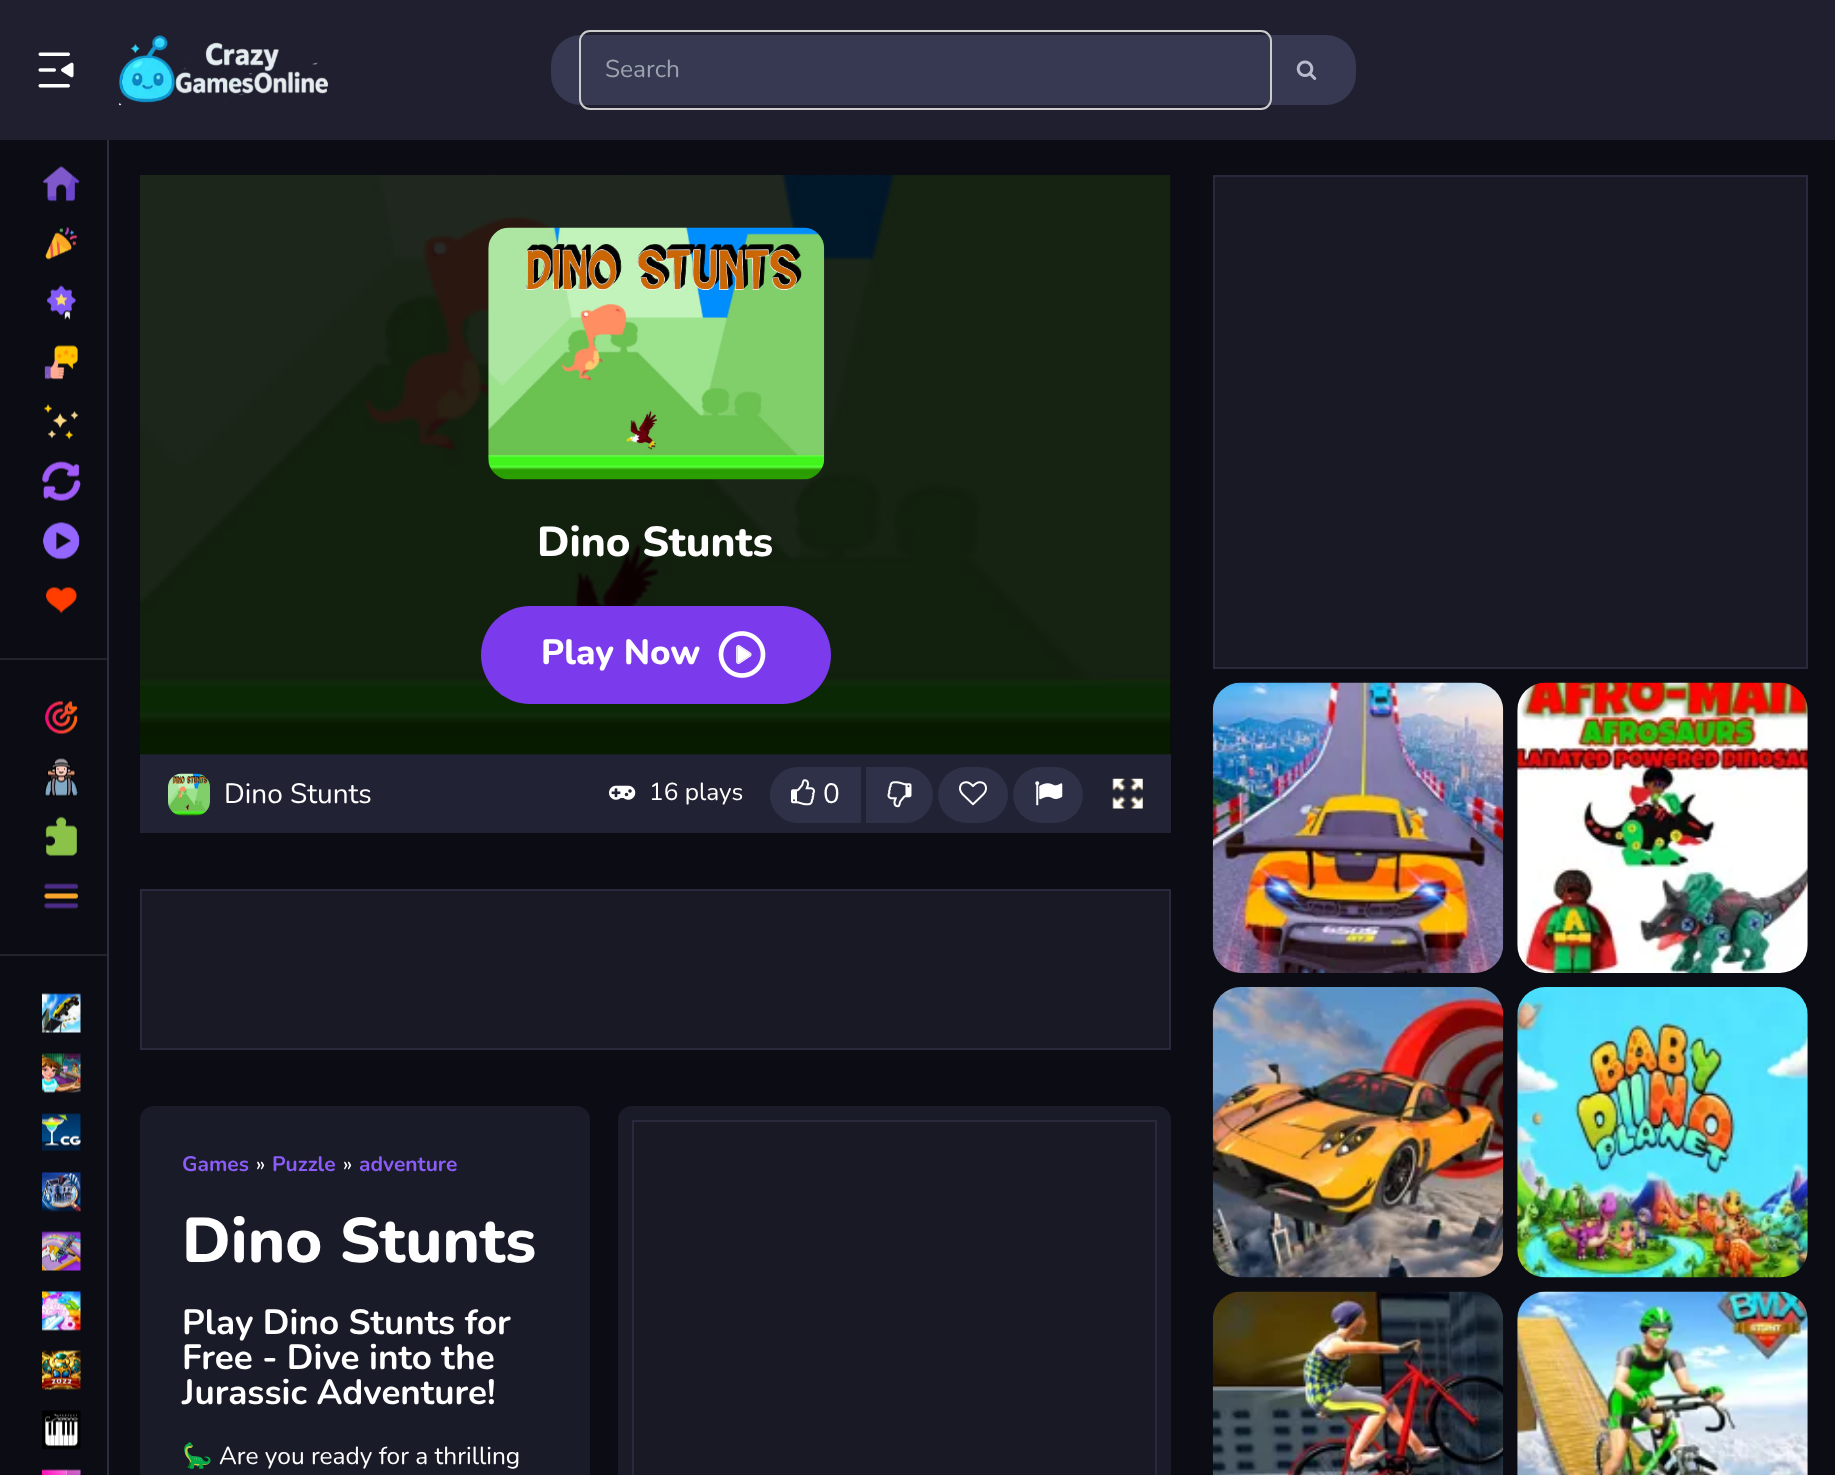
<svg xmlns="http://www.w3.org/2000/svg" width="1835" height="1475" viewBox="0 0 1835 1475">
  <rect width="100%" height="100%" fill="#0c0d14"/>
  <path d="M0 0h1835v140H0z" fill="#1f1f30"/>
  <image x="38" y="52" width="36" height="36" href="img/1.png"/>
  <image x="119" y="35" width="210" height="71" href="img/2.png"/>
  <rect x="551" y="35" width="805" height="70" rx="30" fill="#373952"/>
  <rect x="580" y="31" width="691" height="78" rx="10" fill="none" stroke="#ccc" stroke-width="2"/>
  <image x="1296" y="60" width="21" height="20" href="img/3.png"/>
  <path d="M107 140h2v1335H107z" fill="#2d2e3b"/>
  <image x="43" y="166" width="37" height="36" href="img/4.png"/>
  <image x="45" y="227" width="32" height="33" href="img/5.png"/>
  <image x="47" y="285" width="29" height="35" href="img/6.png"/>
  <image x="44" y="345" width="34" height="35" href="img/7.png"/>
  <image x="44" y="404" width="35" height="36" href="img/8.png"/>
  <image x="42" y="461" width="39" height="40" href="img/9.png"/>
  <image x="43" y="522" width="37" height="38" href="img/10.png"/>
  <image x="46" y="587" width="31" height="27" href="img/11.png"/>
  <path d="M0 658h107v2H0z" fill="#23242b"/>
  <image x="45" y="700" width="33" height="35" href="img/12.png"/>
  <image x="44" y="757" width="34" height="40" href="img/13.png"/>
  <image x="45" y="816" width="32" height="40" href="img/14.png"/>
  <image x="44" y="883" width="34" height="26" href="img/15.png"/>
  <path d="M0 954h107v2H0z" fill="#23242b"/>
  <image x="42" y="993" width="39" height="40" href="img/16.png"/>
  <image x="42" y="1053" width="39" height="40" href="img/17.png"/>
  <image x="42" y="1113" width="39" height="38" href="img/18.png"/>
  <image x="42" y="1172" width="39" height="40" href="img/19.png"/>
  <image x="42" y="1231" width="39" height="40" href="img/20.png"/>
  <image x="42" y="1291" width="39" height="40" href="img/21.png"/>
  <image x="42" y="1350" width="39" height="40" href="img/22.png"/>
  <image x="42" y="1410" width="39" height="40" href="img/23.png"/>
  <image x="42" y="1469" width="39" height="6" href="img/24.png"/>
  <path d="M140 175h1031v579H140z" fill="#070707"/>
  <path d="M140 754h1031v79H140z" fill="#212233"/>
  <image x="140" y="754" width="1031" height="1" href="img/28.png"/>
  <image x="140" y="175" width="1031" height="580" href="img/25.png"/>
  <image x="488" y="227" width="337" height="253" href="img/26.png"/>
  <rect x="481" y="606" width="350" height="98" rx="49" fill="#7c3aed"/>
  <image x="718" y="631" width="48" height="47" href="img/27.png"/>
  <image x="168" y="773" width="42" height="43" href="img/29.png"/>
  <image x="609" y="785" width="27" height="15" href="img/30.png"/>
  <path d="M798 767H861V823H798C782.5 823 770 810.5 770 795C770 779.5 782.5 767 798 767Z" fill="#2f3148"/>
  <image x="791" y="779" width="24" height="27" href="img/31.png"/>
  <path d="M866 767H905C920.5 767 933 779.5 933 795C933 810.5 920.5 823 905 823H866Z" fill="#2f3148"/>
  <image x="887" y="781" width="25" height="27" href="img/32.png"/>
  <rect x="938" y="767" width="70" height="56" rx="28" fill="#2f3148"/>
  <image x="959" y="781" width="28" height="25" href="img/33.png"/>
  <rect x="1013" y="767" width="70" height="56" rx="28" fill="#2f3148"/>
  <image x="1035" y="781" width="28" height="25" href="img/34.png"/>
  <image x="1112" y="778" width="31" height="31" href="img/35.png"/>
  <path d="M141 890h1029v159H141z" fill="#181925" stroke="#28293d" stroke-width="2"/>
  <rect x="140" y="1106" width="450" height="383" rx="14" fill="#1a1b28"/>
  <rect x="618" y="1106" width="553" height="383" rx="14" fill="#1a1b28"/>
  <path d="M633 1121h523v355H633z" fill="#181925" stroke="#28293d" stroke-width="2"/>
  <path d="M1214 176h593v492H1214z" fill="#181925" stroke="#28293d" stroke-width="2"/>
  <image x="1212" y="682" width="292" height="291" href="img/36.png"/>
  <image x="1517" y="682" width="291" height="291" href="img/37.png"/>
  <image x="1212" y="987" width="292" height="291" href="img/38.png"/>
  <image x="1517" y="987" width="291" height="291" href="img/39.png"/>
  <image x="1212" y="1291" width="292" height="184" href="img/40.png"/>
  <image x="1517" y="1291" width="291" height="184" href="img/41.png"/>
  <text x="605" y="77" font-family="Nunito" font-size="24.5" fill="#9ca3af">Search</text>
  <text x="537" y="556" font-family="Nunito" font-size="42" font-weight="800" fill="#fff">Dino Stunts</text>
  <text x="541" y="664" font-family="Nunito" font-size="35" font-weight="800" fill="#fff">Play Now</text>
  <text x="224" y="803" font-family="Nunito" font-size="28" fill="#fff">Dino Stunts</text>
  <text x="649" y="800" font-family="Nunito" font-size="24.5" fill="#fff">16 plays</text>
  <text x="823" y="803" font-family="Nunito" font-size="28" fill="#fff">0</text>
  <text x="182" y="1171" font-family="Nunito" font-size="21" font-weight="bold" fill="#8b5cf6">Games</text>
  <text x="256" y="1171" font-family="Nunito" font-size="21" fill="#fff">»</text>
  <text x="272" y="1171" font-family="Nunito" font-size="21" font-weight="bold" fill="#8b5cf6">Puzzle</text>
  <text x="343" y="1171" font-family="Nunito" font-size="21" fill="#fff">»</text>
  <text x="359" y="1171" font-family="Nunito" font-size="21" font-weight="bold" fill="#8b5cf6">adventure</text>
  <text x="182" y="1262" font-family="Nunito" font-size="63" font-weight="800" fill="#fff">Dino Stunts</text>
  <g font-family="Nunito" font-size="35" font-weight="bold" fill="#fff">
    <text x="182" y="1334">Play Dino Stunts for</text>
    <text x="182" y="1369">Free - Dive into the</text>
    <text x="182" y="1404">Jurassic Adventure!</text>
  </g>
  <text x="182" y="1464" font-family="Noto Color Emoji" font-size="24.5" fill="#fff">🦕</text>
  <text x="219" y="1464" font-family="Nunito" font-size="24.5" fill="#fff">Are you ready for a thrilling</text>
</svg>
